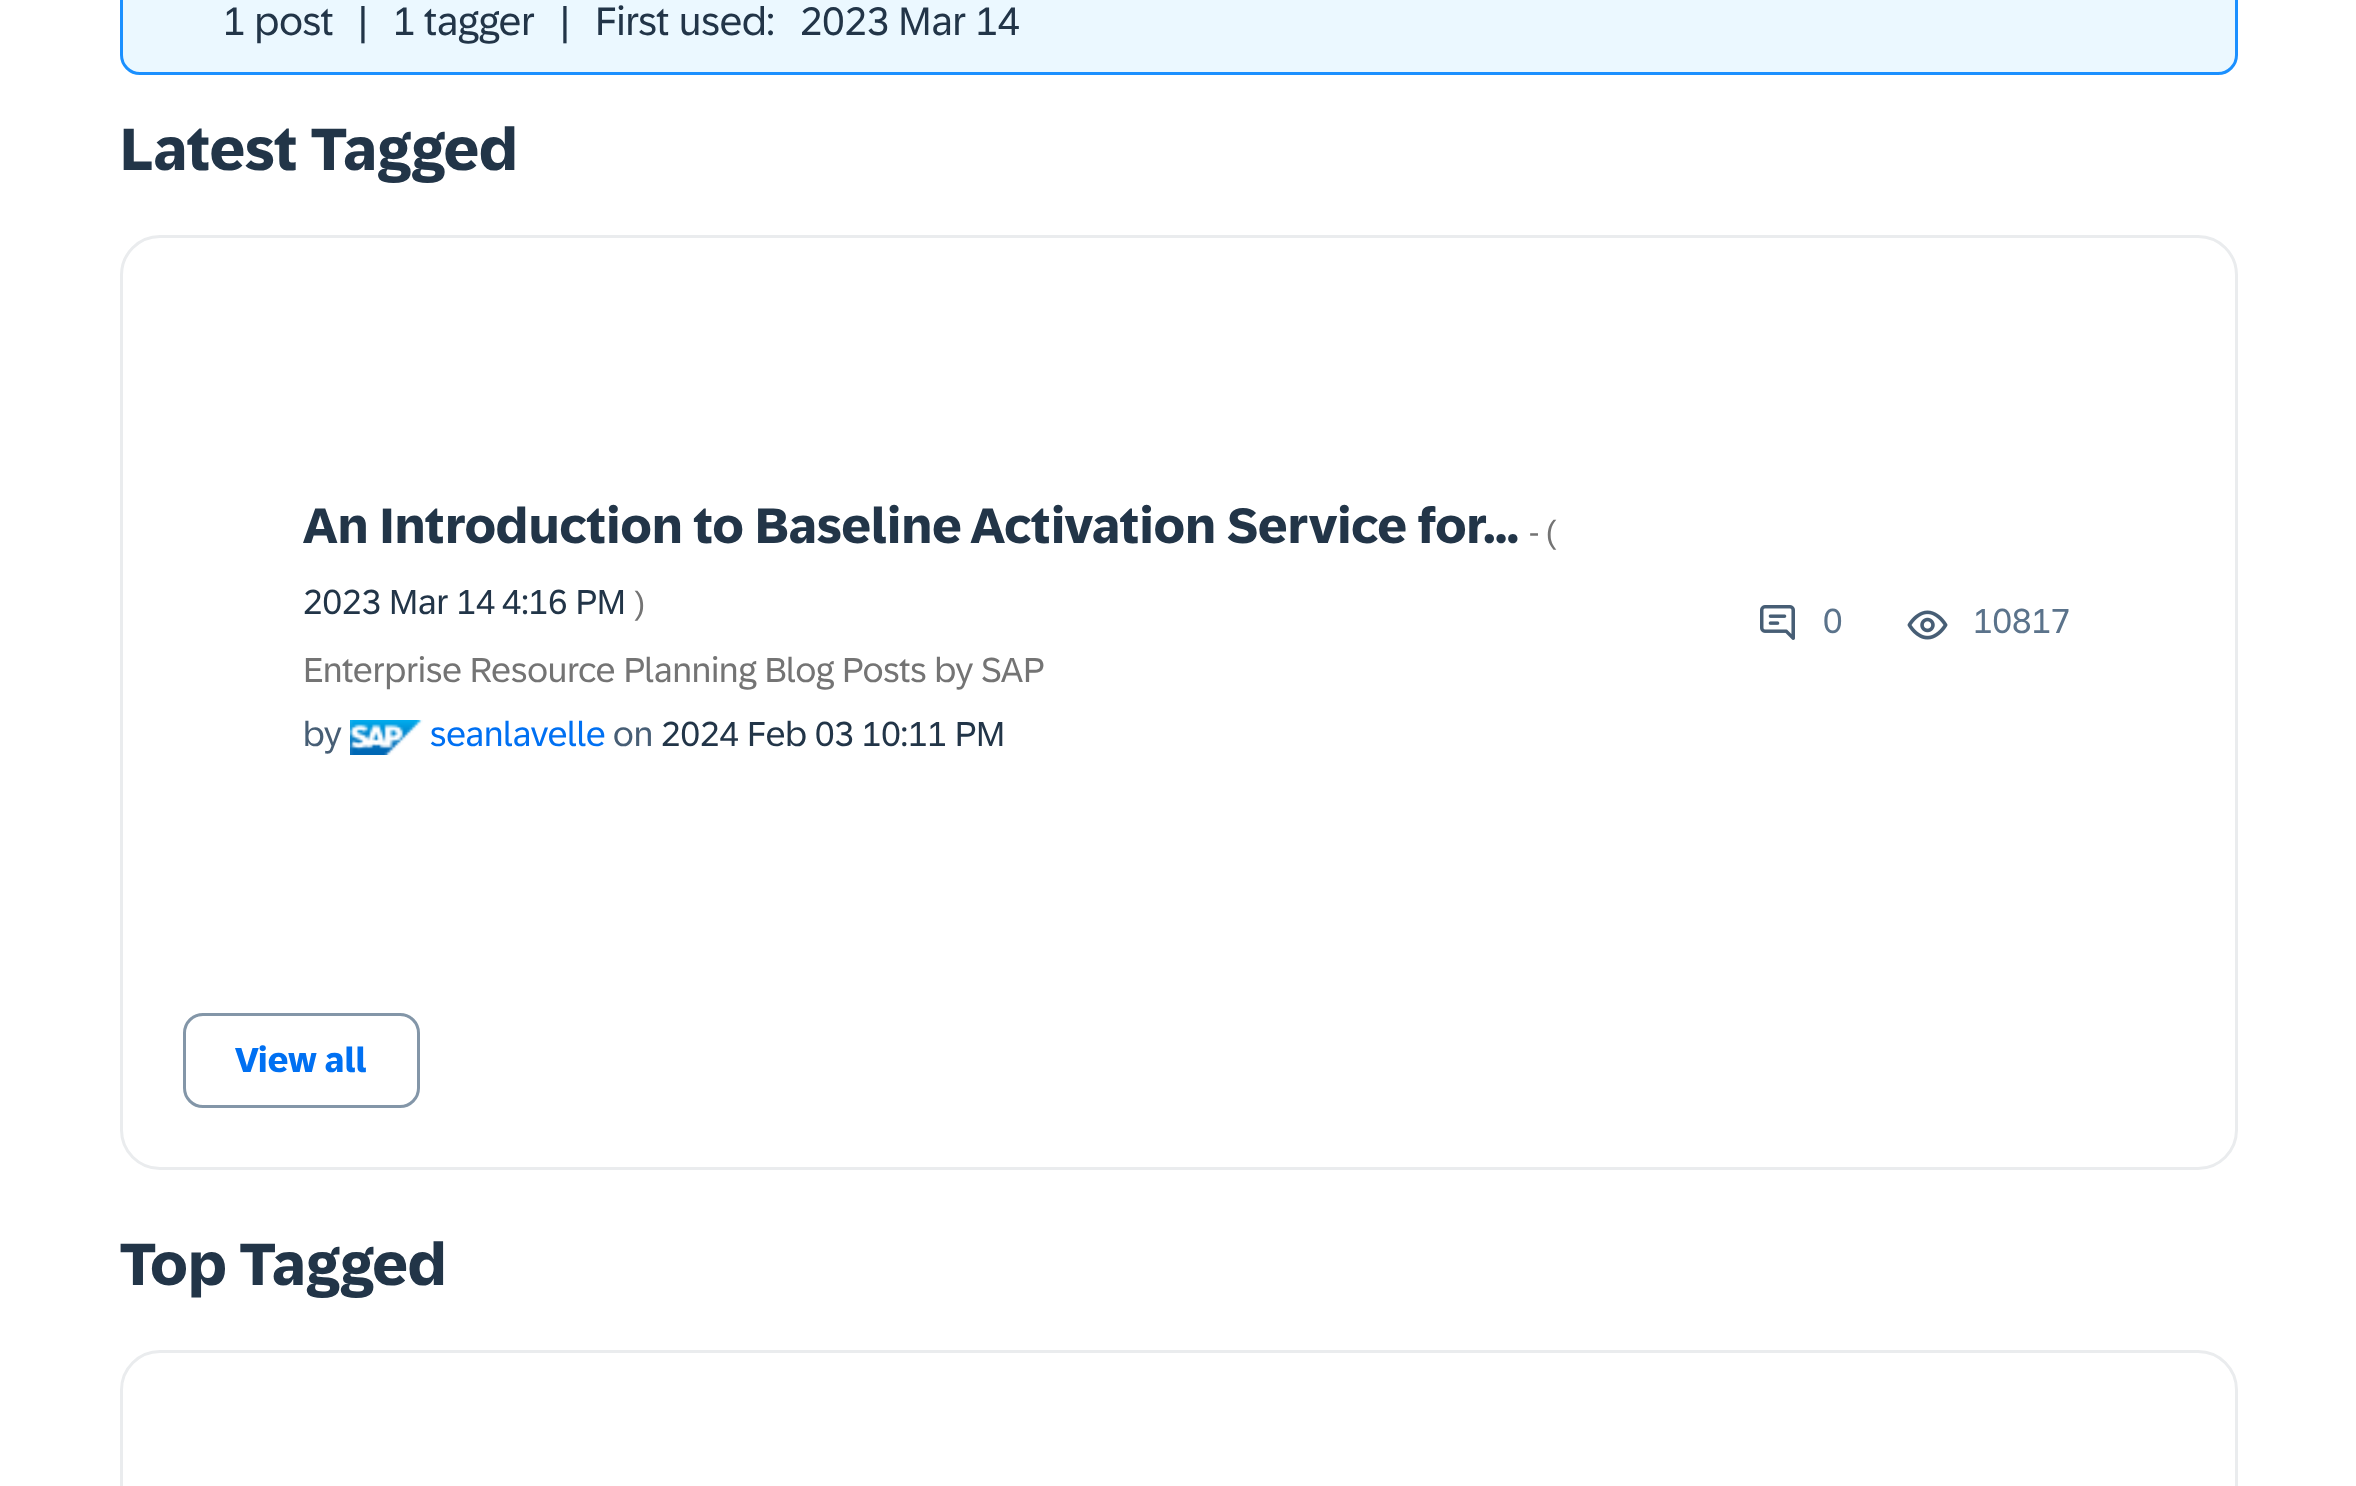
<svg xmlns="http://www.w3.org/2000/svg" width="2356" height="1486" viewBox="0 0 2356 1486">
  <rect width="100%" height="100%" fill="#fff"/>
  <rect x="121.5" y="-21.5" width="2115" height="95" rx="18.5" fill="#ebf8ff" stroke="#1b90ff" stroke-width="3"/>
  <rect x="121.5" y="236.5" width="2115" height="932" rx="38.5" fill="none" stroke="#eaecee" stroke-width="3"/>
  <image x="350" y="720" width="73" height="35" href="img/1.png"/>
  <image x="1760" y="605" width="35" height="35" href="img/2.png"/>
  <image x="1907" y="610" width="41" height="30" href="img/3.png"/>
  <rect x="184.5" y="1014.5" width="234" height="92" rx="18.5" fill="none" stroke="#8396a8" stroke-width="3"/>
  <rect x="121.5" y="1351.5" width="2115" height="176" rx="38.5" fill="none" stroke="#eaecee" stroke-width="3"/>
  <g font-family="'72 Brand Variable'" font-size="40" fill="#223548">
    <text x="223" y="35">1 post</text>
    <text x="358" y="35">|</text>
    <text x="393" y="35">1 tagger</text>
    <text x="560" y="35">|</text>
    <text x="595" y="35">First used:</text>
    <text x="800" y="35">2023 Mar 14</text>
  </g>
  <text x="120" y="170" font-family="'72 Brand Variable'" font-size="60" font-weight="bold" fill="#223548">Latest Tagged</text>
  <text x="303" y="543" font-family="'72 Brand Variable'" font-size="50" font-weight="bold" fill="#223548">An Introduction to Baseline Activation Service for...</text>
  <text x="1529" y="543" font-family="'72 Brand Variable'" font-size="32" fill="#747474">- (</text>
  <g font-family="'72 Brand Variable'" font-size="35" fill="#223548">
    <text x="303" y="614">2023 Mar 14</text>
    <text x="502" y="614">4:16 PM</text>
  </g>
  <text x="634" y="614" font-family="'72 Brand Variable'" font-size="32" fill="#747474">)</text>
  <text x="303" y="682" font-family="'72 Brand Variable'" font-size="35" fill="#747474">Enterprise Resource Planning Blog Posts by SAP</text>
  <text x="303" y="746" font-family="'72 Brand Variable'" font-size="35" fill="#475e75">by</text>
  <text x="430" y="746" font-family="'72 Brand Variable'" font-size="35" fill="#0070f2">seanlavelle</text>
  <text x="613" y="746" font-family="'72 Brand Variable'" font-size="35" fill="#475e75">on</text>
  <text x="661" y="746" font-family="'72 Brand Variable'" font-size="35" fill="#223548">2024 Feb 03 10:11 PM</text>
  <g font-family="'72 Brand Variable'" font-size="35" fill="#5b738b">
    <text x="1823" y="633">0</text>
    <text x="1973" y="633">10817</text>
  </g>
  <text x="235" y="1072" font-family="'72 Brand Variable'" font-size="35" font-weight="bold" fill="#0070f2">View all</text>
  <text x="120" y="1285" font-family="'72 Brand Variable'" font-size="60" font-weight="bold" fill="#223548">Top Tagged</text>
</svg>
